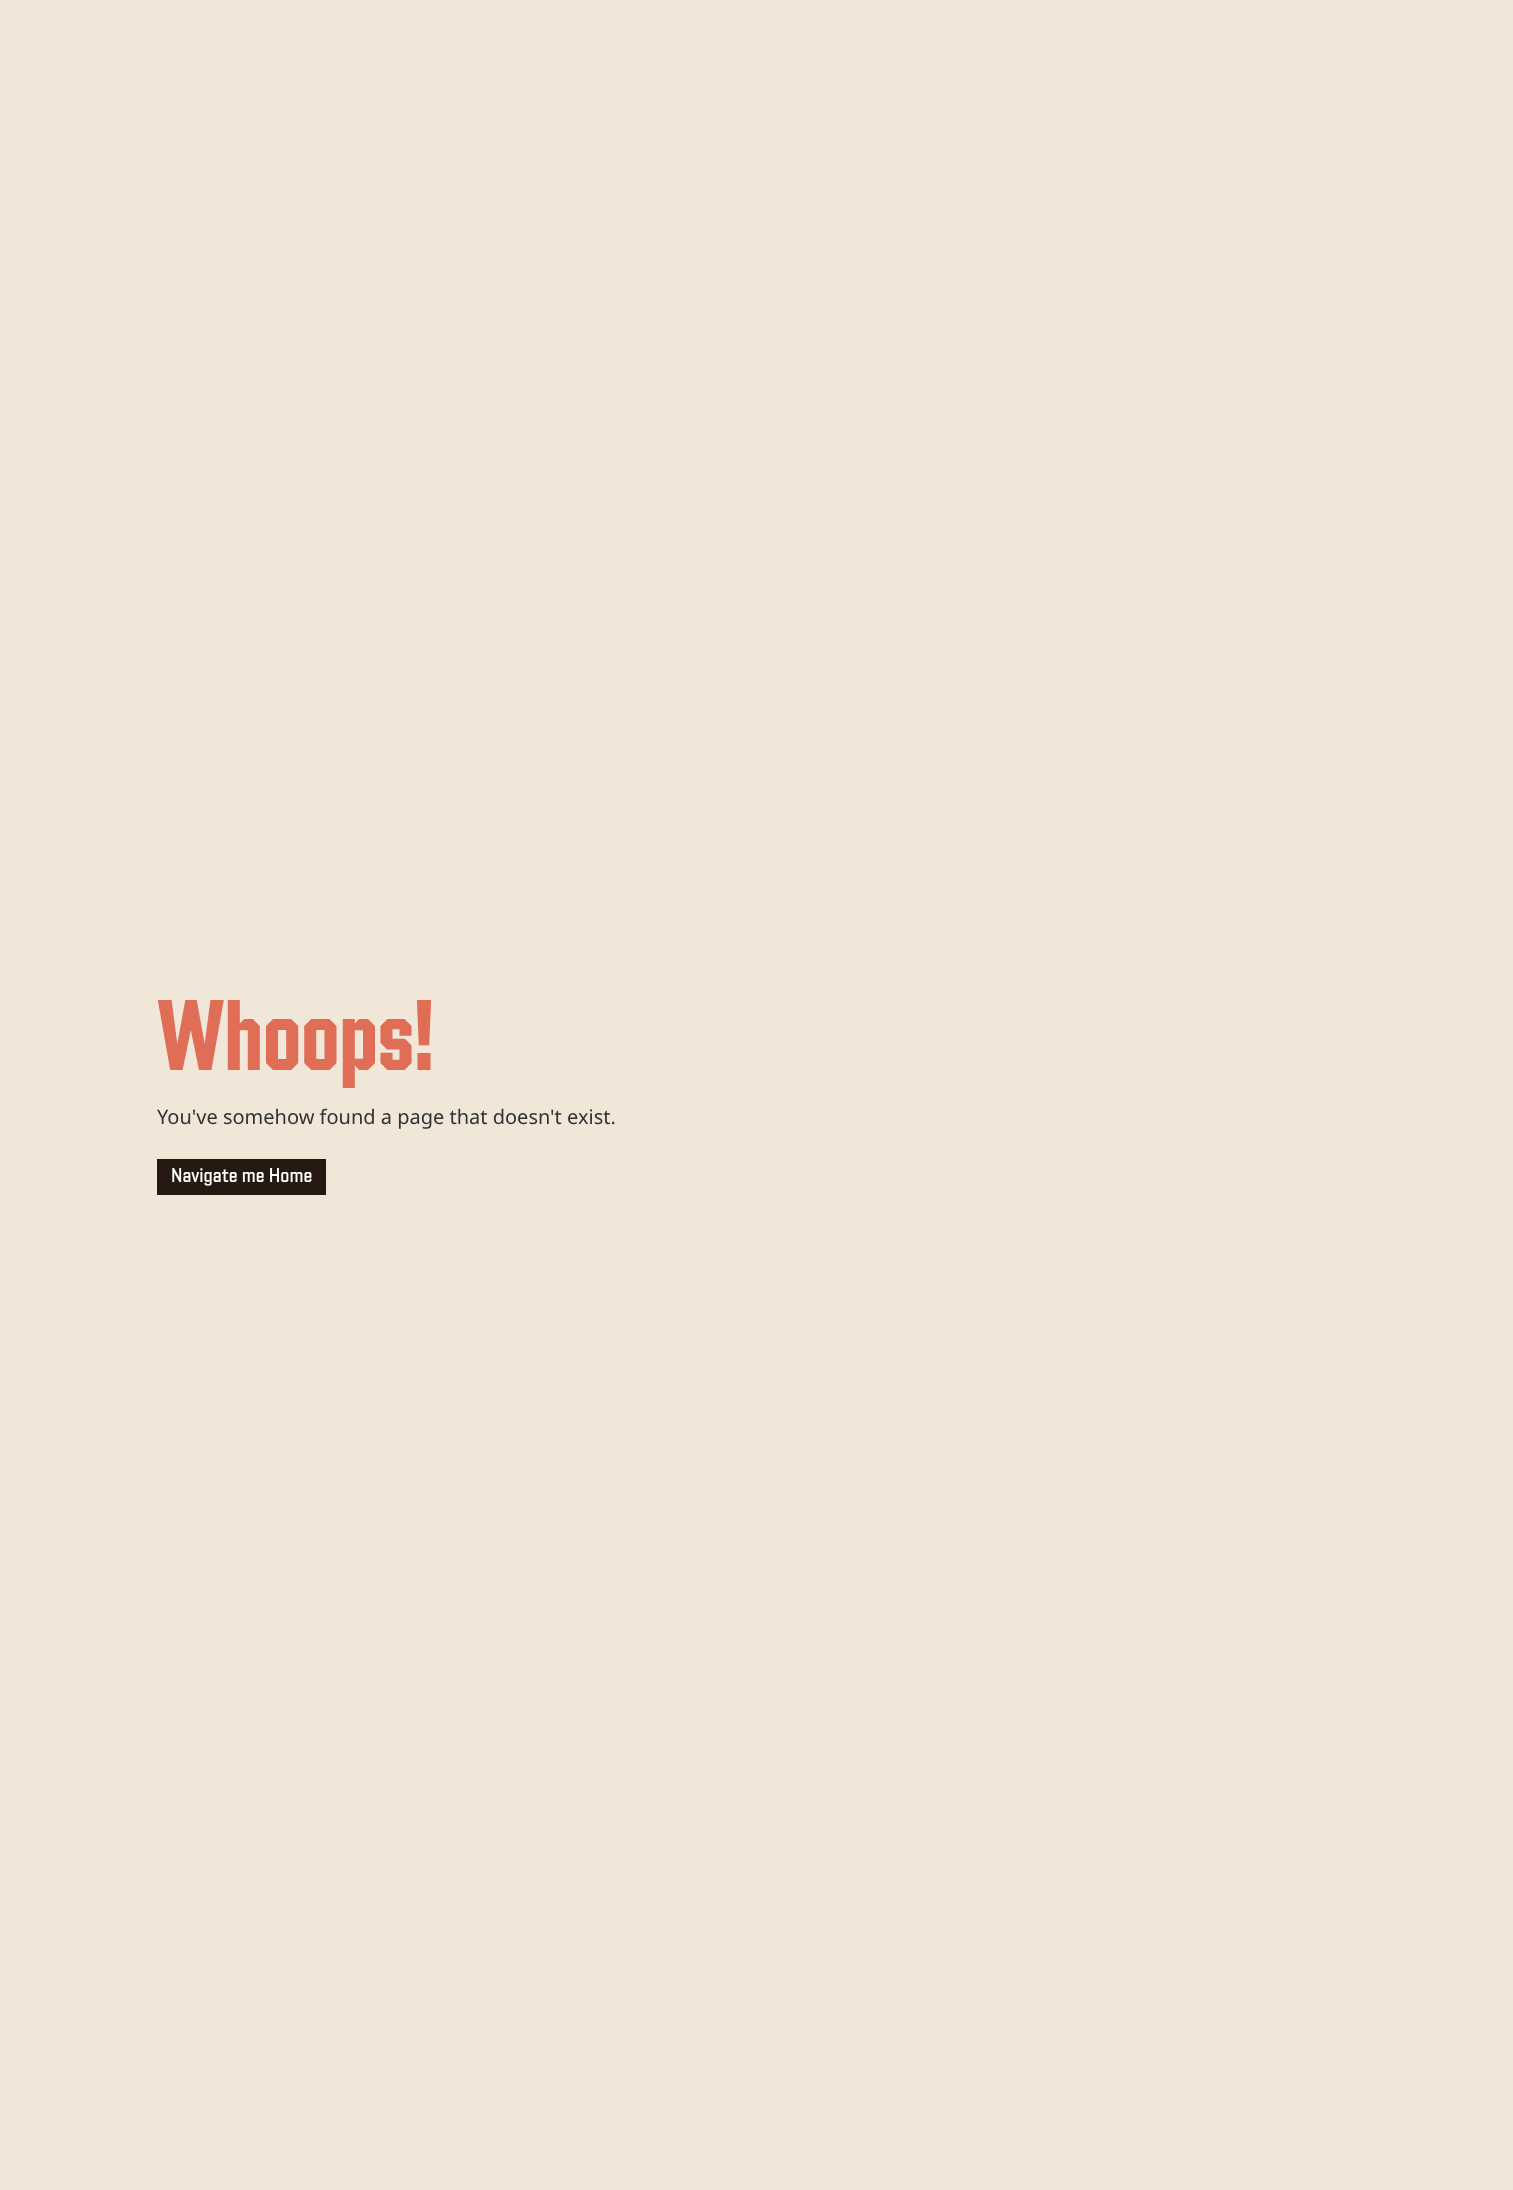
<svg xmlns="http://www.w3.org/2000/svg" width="1513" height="2190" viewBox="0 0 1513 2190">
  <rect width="100%" height="100%" fill="#f0e7d9"/>
  <path d="M157 1159h169v36H157z" fill="#261912"/>
  <text x="157" y="1070" font-family="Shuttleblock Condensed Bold" font-size="100" font-weight="bold" fill="#e06e56">Whoops!</text>
  <text x="157" y="1124" font-family="Noto Sans" font-size="20" fill="#333">You've somehow found a page that doesn't exist.</text>
  <text x="171" y="1182" font-family="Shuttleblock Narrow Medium" font-size="20" font-weight="500" fill="#fff">Navigate me Home</text>
</svg>
